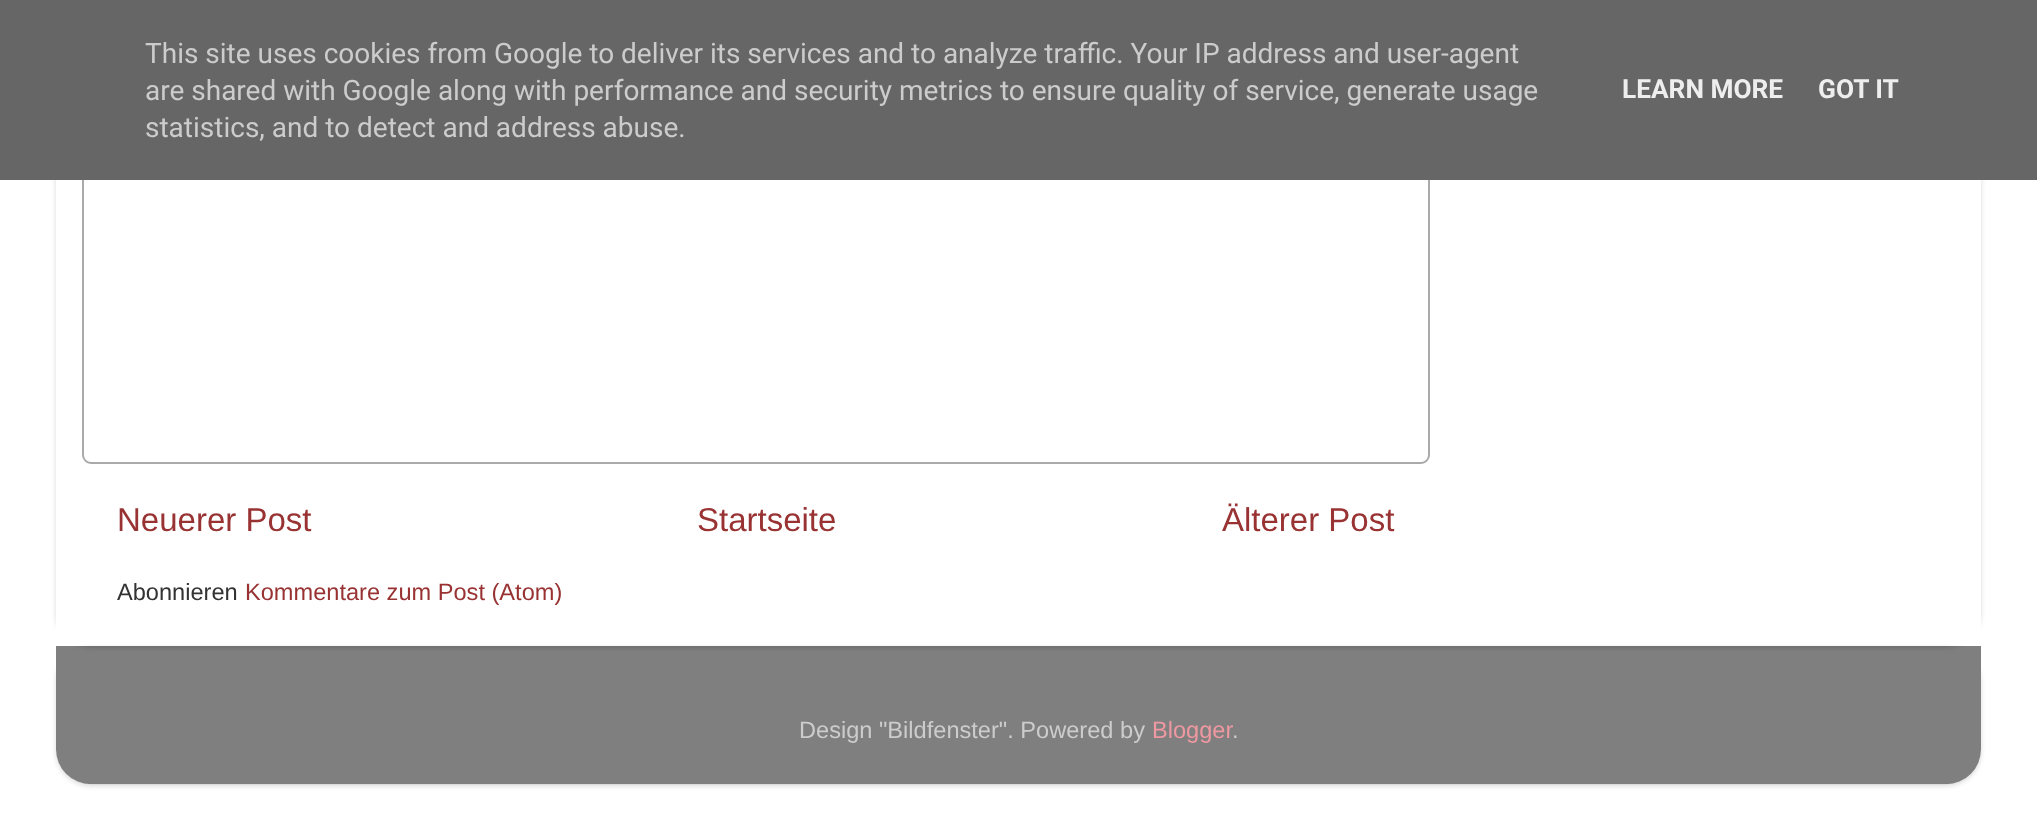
<svg xmlns="http://www.w3.org/2000/svg" width="2037" height="818" viewBox="0 0 2037 818">
  <defs>
    <clipPath id="clip1"><path d="M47 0H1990V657H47ZM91-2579H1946C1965.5-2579 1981-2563.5 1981-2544V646H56V-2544C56-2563.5 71.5-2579 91-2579Z" clip-rule="evenodd"/></clipPath>
    <clipPath id="clip2"><path d="M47 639H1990V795H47ZM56 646H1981V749C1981 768.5 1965.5 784 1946 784H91C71.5 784 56 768.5 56 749Z" clip-rule="evenodd"/></clipPath>
  </defs>
  <rect width="100%" height="100%" fill="#fff"/>
  <g clip-path="url(#clip1)">
    <rect x="56" y="-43" width="1925" height="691" rx="35" fill="#00000026" filter="blur(2.5px)"/>
  </g>
  <rect x="83" y="-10" width="1346" height="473" rx="8" fill="none" stroke="#aaa" stroke-width="2"/>
  <path d="M0 0h2037v180H0z" fill="#666"/>
  <path d="M79 645h1879v1H79z" fill="#ffffffb3"/>
  <g clip-path="url(#clip2)">
    <rect x="56" y="648" width="1925" height="138" rx="35" fill="#00000026" filter="blur(2.5px)"/>
  </g>
  <image x="56" y="646" width="1925" height="139" href="img/1.png"/>
  <g font-family="Roboto" font-size="28" fill="#ccc">
    <text x="145" y="63">This site uses cookies from Google to deliver its services and to analyze traffic. Your IP address and user-agent</text>
    <text x="145" y="100">are shared with Google along with performance and security metrics to ensure quality of service, generate usage</text>
    <text x="145" y="137">statistics, and to detect and address abuse.</text>
  </g>
  <g font-family="Roboto" font-size="26.25" font-weight="bold" fill="#eee">
    <text x="1622" y="98">LEARN MORE</text>
    <text x="1818" y="98">GOT IT</text>
  </g>
  <g font-family="Liberation Sans" font-size="33" fill="#933">
    <text x="117" y="531">Neuerer Post</text>
    <text x="697" y="531">Startseite</text>
    <text x="1222" y="531">Älterer Post</text>
  </g>
  <text x="117" y="600" font-family="Liberation Sans" font-size="23.6" fill="#333">Abonnieren</text>
  <text x="245" y="600" font-family="Liberation Sans" font-size="23.6" fill="#933">Kommentare zum Post (Atom)</text>
  <text x="799" y="738" font-family="Liberation Sans" font-size="23.6" fill="#ccc">Design "Bildfenster". Powered by</text>
  <text x="1152" y="738" font-family="Liberation Sans" font-size="23.6" fill="#ee98a1">Blogger</text>
  <text x="1232" y="738" font-family="Liberation Sans" font-size="23.6" fill="#ccc">.</text>
</svg>
